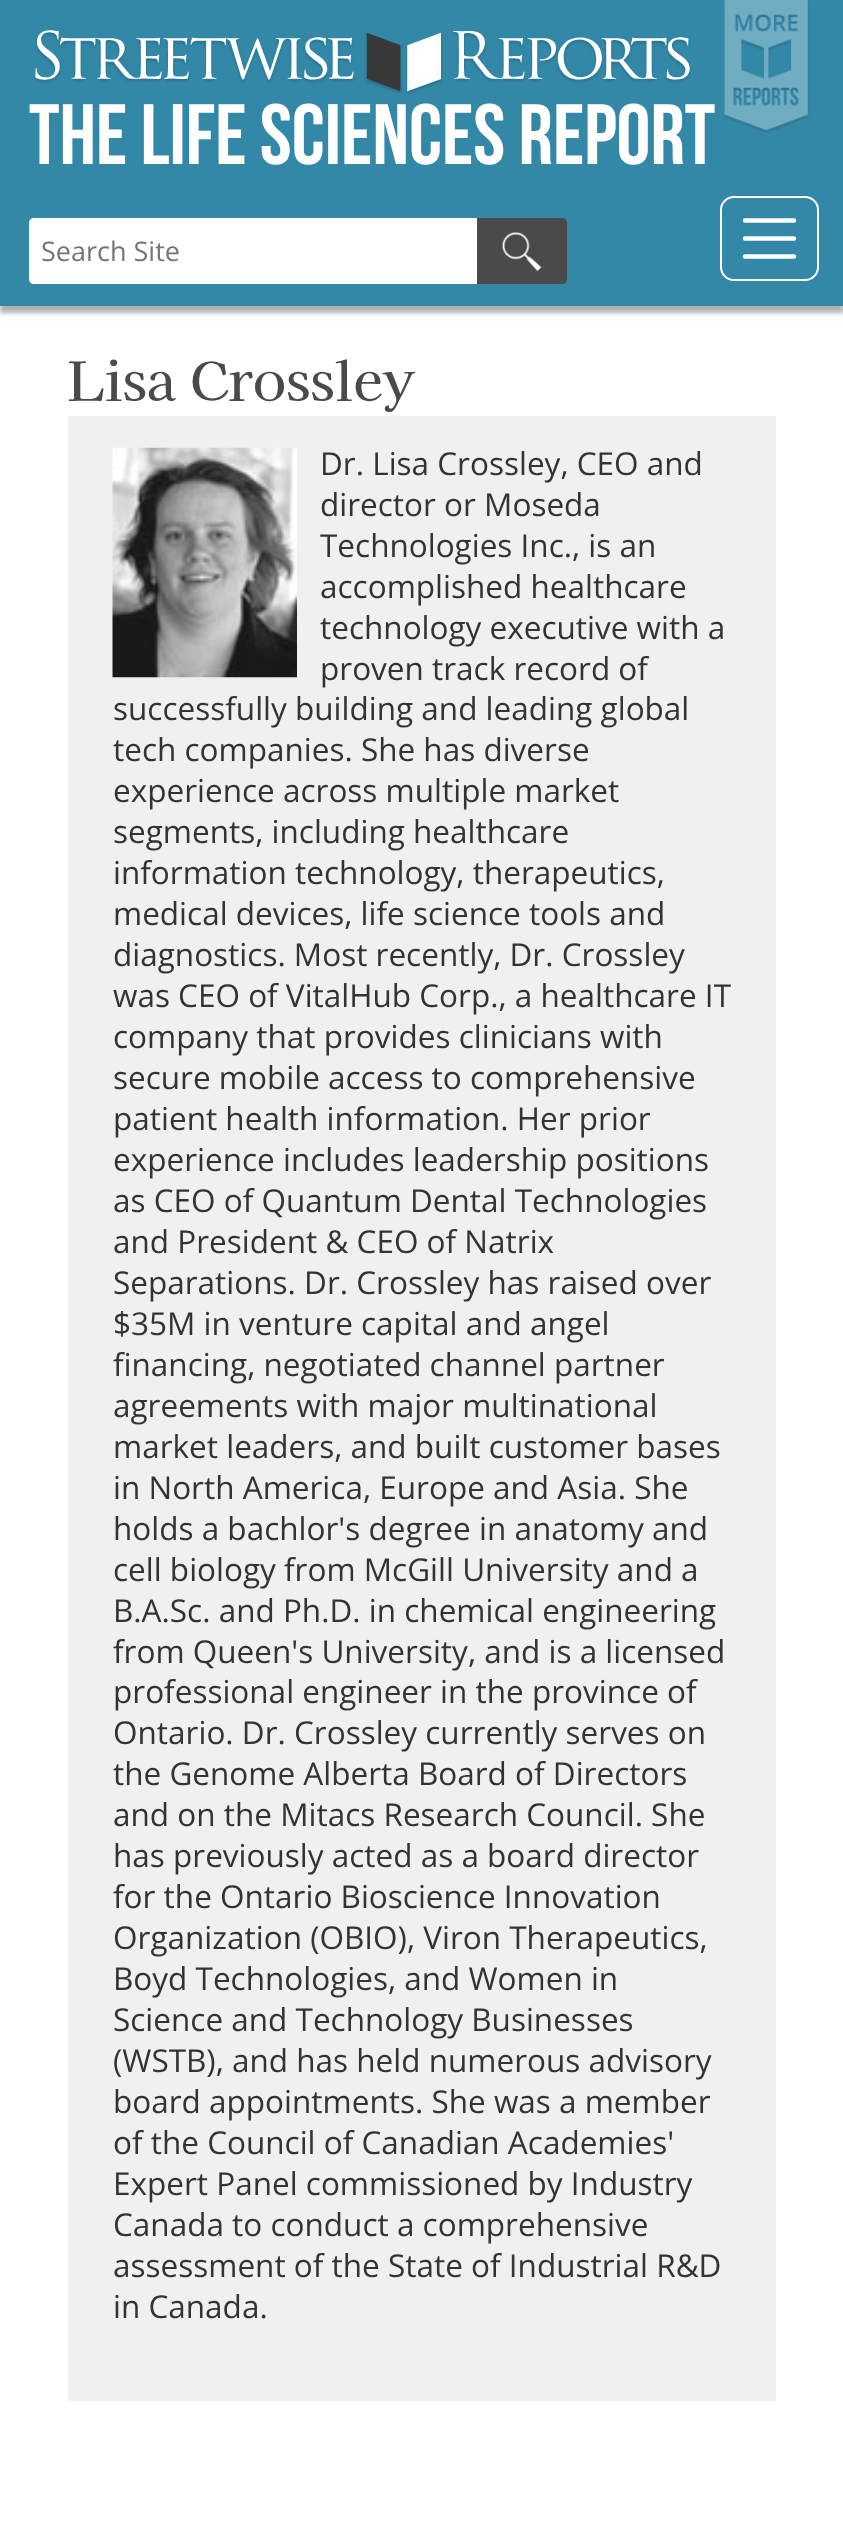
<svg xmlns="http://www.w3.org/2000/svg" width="843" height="2524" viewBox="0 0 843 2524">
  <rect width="100%" height="100%" fill="#fff"/>
  <path d="M0 7h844v306H0z" fill="#0000004d" filter="blur(2px)"/>
  <path d="M0 0h843v306H0z" fill="#3388a8"/>
  <image x="724" y="0" width="85" height="133" href="img/1.png"/>
  <image x="34" y="30" width="657" height="64" href="img/2.png"/>
  <path d="M34 218H479V284H34C31 284 29 282 29 279V223C29 220 31 218 34 218Z" fill="#fff"/>
  <path d="M477 218H562C565 218 567 220 567 223V279C567 282 565 284 562 284H477Z" fill="#4a4a4a"/>
  <image x="502" y="231" width="40" height="41" href="img/3.png"/>
  <rect x="721" y="197" width="97" height="83" rx="13" fill="none" stroke="#fff" stroke-width="2"/>
  <path d="M745 220.5H794M745 238.5H794M745 256.5H794" fill="none" stroke="#fff" stroke-width="4.5" stroke-linecap="round"/>
  <path d="M68 416h708v1985H68z" fill="#f0f0f0"/>
  <image x="112" y="447" width="185" height="231" href="img/4.png"/>
  <text x="29" y="164" font-family="Bebas Neue" font-size="85.5" fill="#fff">The Life Sciences Report</text>
  <text x="41" y="261" font-family="Open Sans" font-size="27" fill="#757575">Search Site</text>
  <text x="68" y="401" font-family="Kaisei Tokumin" font-size="54" font-weight="500" fill="#4a4a4a">Lisa Crossley</text>
  <g font-family="Open Sans" font-size="31.5" fill="#333">
    <text x="320" y="475">Dr. Lisa Crossley, CEO and</text>
    <text x="320" y="516">director or Moseda</text>
    <text x="320" y="557">Technologies Inc., is an</text>
    <text x="320" y="598">accomplished healthcare</text>
    <text x="320" y="639">technology executive with a</text>
    <text x="320" y="680">proven track record of</text>
    <text x="113" y="720">successfully building and leading global</text>
    <text x="113" y="761">tech companies. She has diverse</text>
    <text x="113" y="802">experience across multiple market</text>
    <text x="113" y="843">segments, including healthcare</text>
    <text x="113" y="884">information technology, therapeutics,</text>
    <text x="113" y="925">medical devices, life science tools and</text>
    <text x="113" y="966">diagnostics. Most recently, Dr. Crossley</text>
    <text x="113" y="1007">was CEO of VitalHub Corp., a healthcare IT</text>
    <text x="113" y="1048">company that provides clinicians with</text>
    <text x="113" y="1089">secure mobile access to comprehensive</text>
    <text x="113" y="1130">patient health information. Her prior</text>
    <text x="113" y="1171">experience includes leadership positions</text>
    <text x="113" y="1212">as CEO of Quantum Dental Technologies</text>
    <text x="113" y="1253">and President &amp; CEO of Natrix</text>
    <text x="113" y="1294">Separations. Dr. Crossley has raised over</text>
    <text x="113" y="1335">$35M in venture capital and angel</text>
    <text x="113" y="1376">financing, negotiated channel partner</text>
    <text x="113" y="1417">agreements with major multinational</text>
    <text x="113" y="1458">market leaders, and built customer bases</text>
    <text x="113" y="1499">in North America, Europe and Asia. She</text>
    <text x="113" y="1540">holds a bachlor's degree in anatomy and</text>
    <text x="113" y="1581">cell biology from McGill University and a</text>
    <text x="113" y="1622">B.A.Sc. and Ph.D. in chemical engineering</text>
    <text x="113" y="1663">from Queen's University, and is a licensed</text>
    <text x="113" y="1703">professional engineer in the province of</text>
    <text x="113" y="1744">Ontario. Dr. Crossley currently serves on</text>
    <text x="113" y="1785">the Genome Alberta Board of Directors</text>
    <text x="113" y="1826">and on the Mitacs Research Council. She</text>
    <text x="113" y="1867">has previously acted as a board director</text>
    <text x="113" y="1908">for the Ontario Bioscience Innovation</text>
    <text x="113" y="1949">Organization (OBIO), Viron Therapeutics,</text>
    <text x="113" y="1990">Boyd Technologies, and Women in</text>
    <text x="113" y="2031">Science and Technology Businesses</text>
    <text x="113" y="2072">(WSTB), and has held numerous advisory</text>
    <text x="113" y="2113">board appointments. She was a member</text>
    <text x="113" y="2154">of the Council of Canadian Academies'</text>
    <text x="113" y="2195">Expert Panel commissioned by Industry</text>
    <text x="113" y="2236">Canada to conduct a comprehensive</text>
    <text x="113" y="2277">assessment of the State of Industrial R&amp;D</text>
    <text x="113" y="2318">in Canada.</text>
  </g>
</svg>
